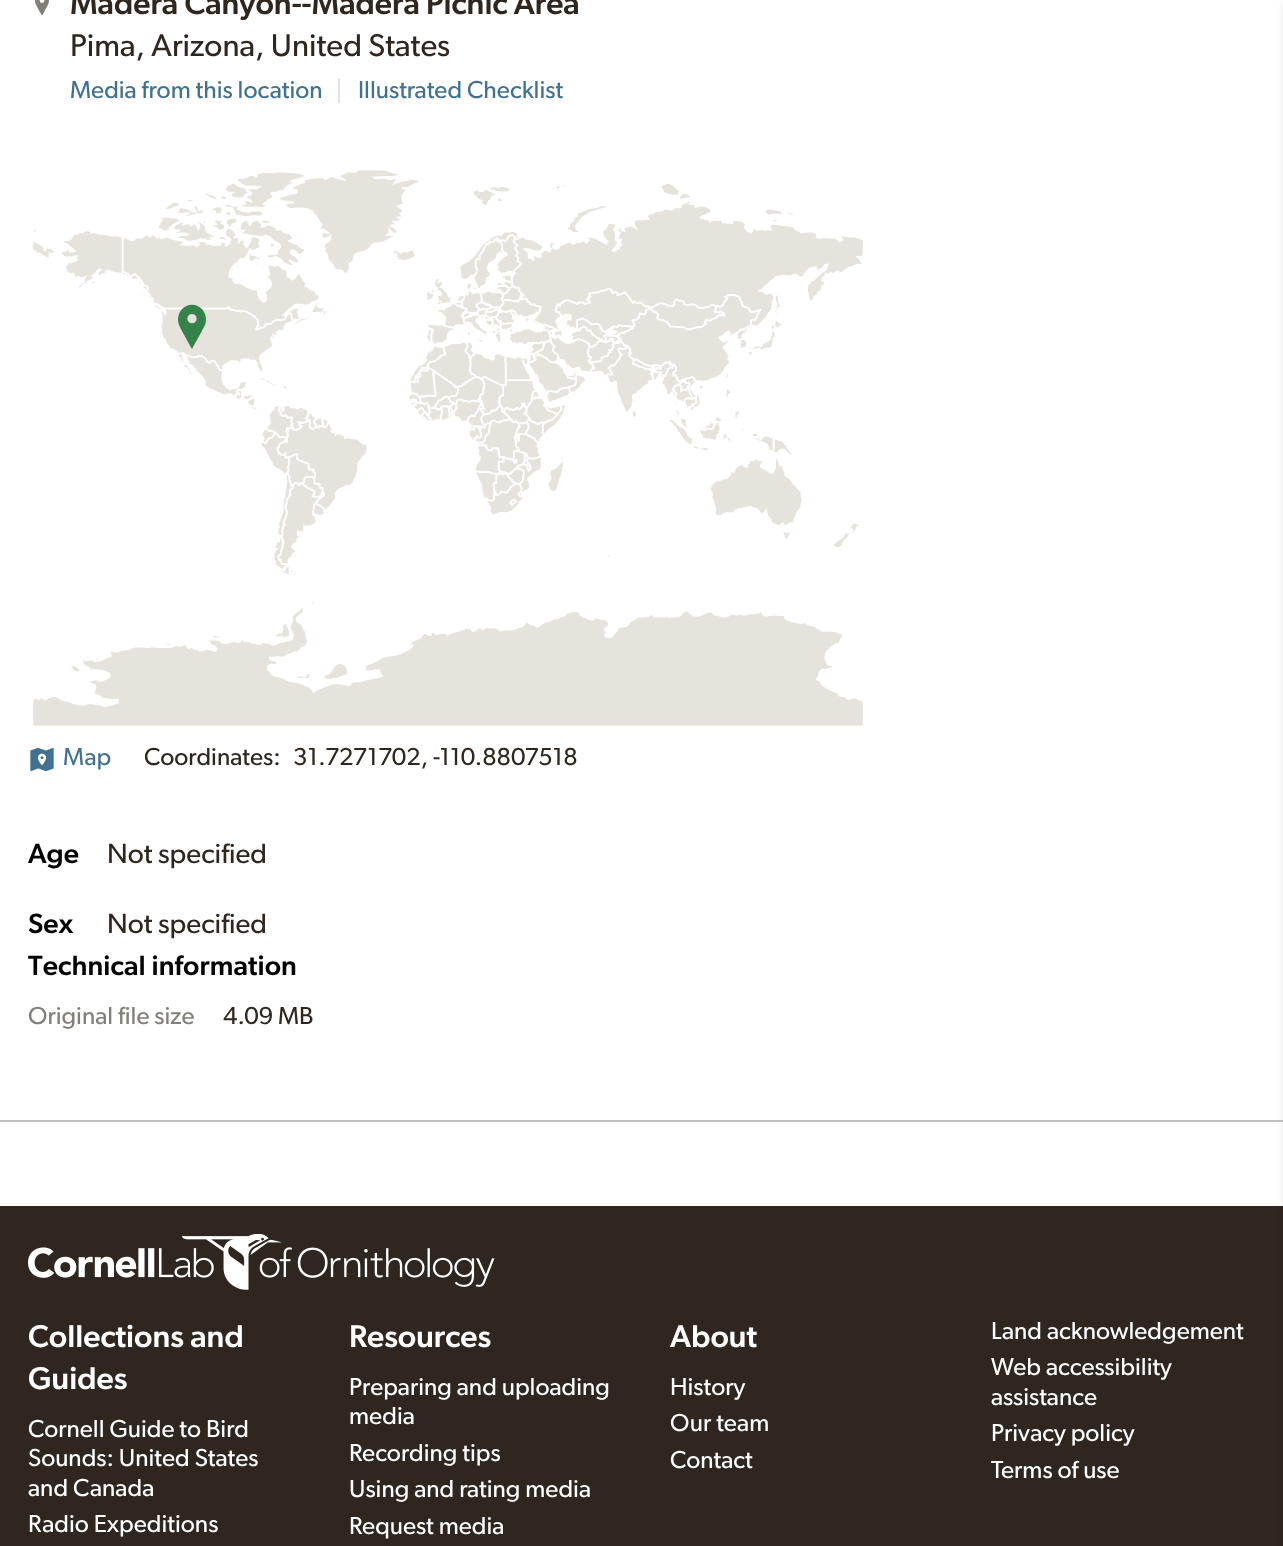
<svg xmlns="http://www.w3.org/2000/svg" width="1283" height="1546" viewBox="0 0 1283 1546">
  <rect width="100%" height="100%" fill="#fff"/>
  <image x="35" y="0" width="14" height="16" href="img/1.png"/>
  <path d="M338 79h2v24H338z" fill="#e5e3dc"/>
  <image x="32" y="170" width="831" height="556" href="img/2.png"/>
  <image x="30" y="747" width="24" height="25" href="img/3.png"/>
  <path d="M0 1120h1283v2H0z" fill="#bfbfbf"/>
  <path d="M0 1206h1283v340H0z" fill="#2e261f"/>
  <path d="M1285 4h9v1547H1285z" fill="#00000033" filter="blur(3.5px)"/>
  <image x="28" y="1234" width="467" height="56" href="img/4.png"/>
  <text x="70" y="14" font-family="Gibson" font-size="31.6" font-weight="500" fill="#2e261f">Madera Canyon--Madera Picnic Area</text>
  <text x="70" y="56" font-family="Gibson" font-size="31.6" fill="#2e261f">Pima, Arizona, United States</text>
  <g font-family="Gibson" font-size="24.6" fill="#40718f">
    <text x="70" y="98">Media from this location</text>
    <text x="358" y="98">Illustrated Checklist</text>
    <text x="63" y="765">Map</text>
  </g>
  <g font-family="Gibson" font-size="24.6" fill="#2e261f">
    <text x="144" y="765">Coordinates:</text>
    <text x="293" y="765">31.7271702, -110.8807518</text>
  </g>
  <text x="28" y="863" font-family="Gibson" font-size="28" font-weight="500" fill="#000">Age</text>
  <text x="107" y="863" font-family="Gibson" font-size="28" fill="#2e261f">Not specified</text>
  <text x="28" y="933" font-family="Gibson" font-size="28" font-weight="500" fill="#000">Sex</text>
  <text x="107" y="933" font-family="Gibson" font-size="28" fill="#2e261f">Not specified</text>
  <text x="28" y="975" font-family="Gibson" font-size="28" font-weight="500" letter-spacing="0.1" fill="#000">Technical information</text>
  <text x="28" y="1024" font-family="Gibson" font-size="24.6" fill="#817f79">Original file size</text>
  <text x="223" y="1024" font-family="Gibson" font-size="24.6" fill="#2e261f">4.09 MB</text>
  <g font-family="Gibson" font-size="31.6" font-weight="500" fill="#fff">
    <text x="28" y="1347">Collections and</text>
    <text x="28" y="1389">Guides</text>
  </g>
  <g font-family="Gibson" font-size="24.6" fill="#fff">
    <text x="28" y="1437">Cornell Guide to Bird</text>
    <text x="28" y="1466">Sounds: United States</text>
    <text x="28" y="1496">and Canada</text>
    <text x="28" y="1532">Radio Expeditions</text>
  </g>
  <text x="349" y="1347" font-family="Gibson" font-size="31.6" font-weight="500" fill="#fff">Resources</text>
  <g font-family="Gibson" font-size="24.6" fill="#fff">
    <text x="349" y="1395">Preparing and uploading</text>
    <text x="349" y="1424">media</text>
    <text x="349" y="1461">Recording tips</text>
    <text x="349" y="1497">Using and rating media</text>
    <text x="349" y="1534">Request media</text>
  </g>
  <text x="670" y="1347" font-family="Gibson" font-size="31.6" font-weight="500" fill="#fff">About</text>
  <g font-family="Gibson" font-size="24.6" fill="#fff">
    <text x="670" y="1395">History</text>
    <text x="670" y="1431">Our team</text>
    <text x="670" y="1468">Contact</text>
    <text x="991" y="1339">Land acknowledgement</text>
    <text x="991" y="1375">Web accessibility</text>
    <text x="991" y="1405">assistance</text>
    <text x="991" y="1441">Privacy policy</text>
    <text x="991" y="1478">Terms of use</text>
  </g>
</svg>
